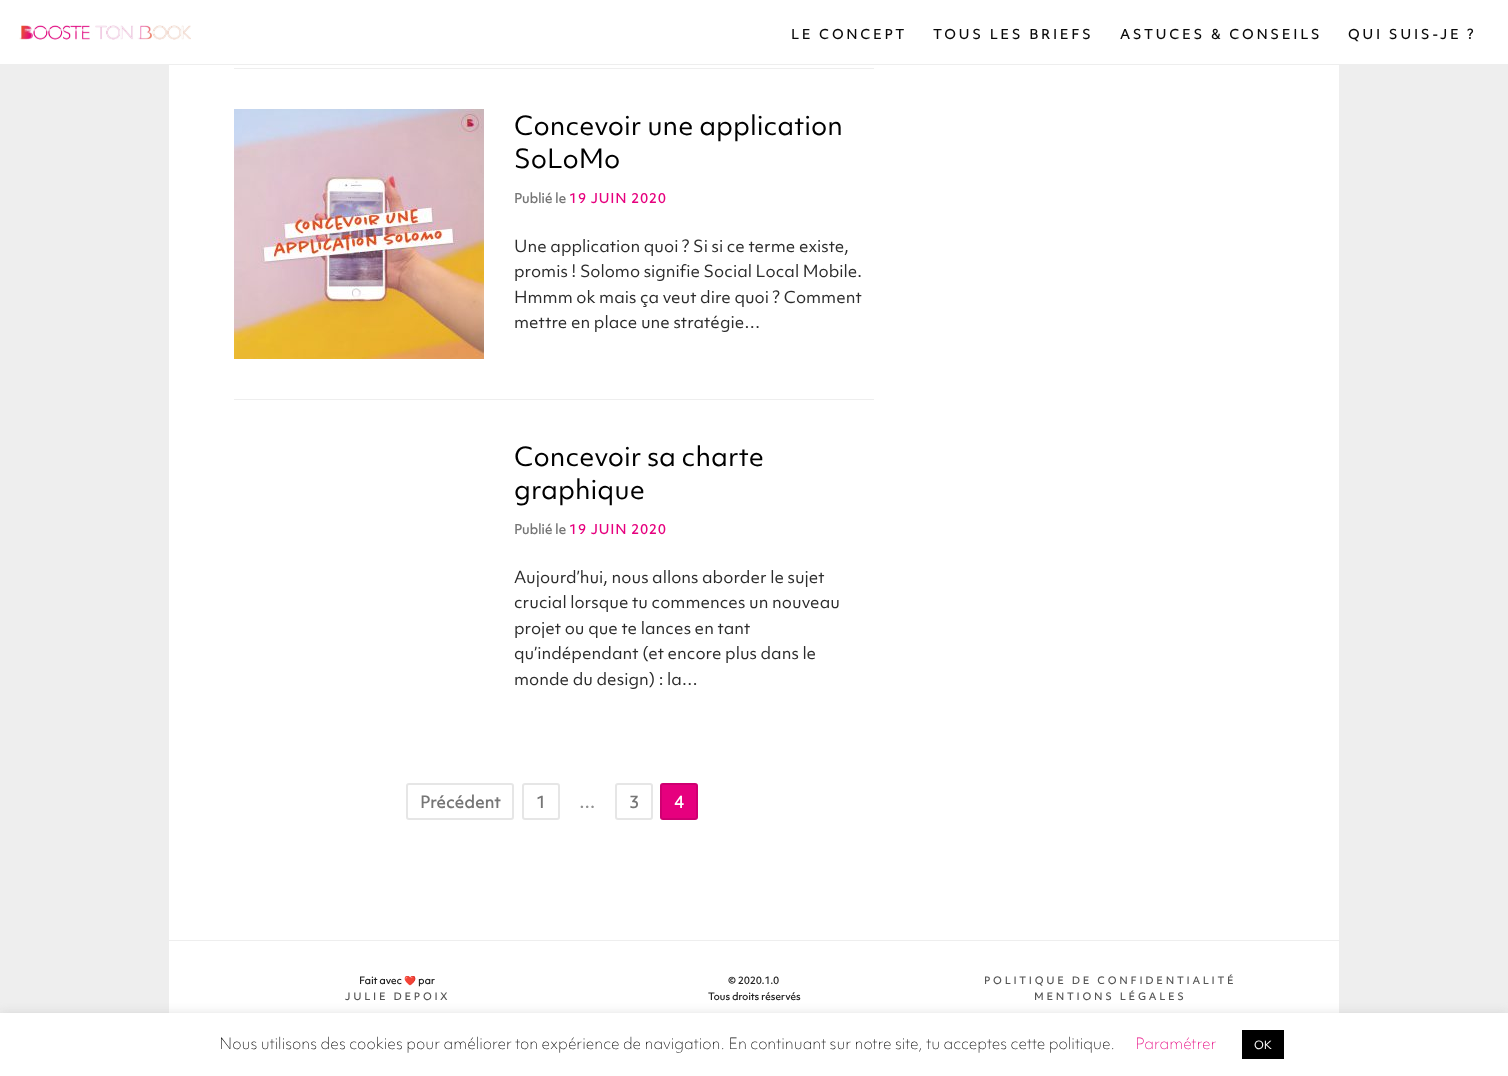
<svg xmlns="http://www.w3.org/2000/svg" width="1508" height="1076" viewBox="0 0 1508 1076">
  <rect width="100%" height="100%" fill="#eee"/>
  <path d="M0 0h1508v64H0z" fill="#fff"/>
  <image x="19" y="25" width="172" height="15" href="img/1.png"/>
  <path d="M169 65h1170v948H169z" fill="#fff"/>
  <path d="M234 68h640v1H234z" fill="#eee"/>
  <image x="234" y="109" width="250" height="250" href="img/2.png"/>
  <path d="M234 399h640v1H234z" fill="#eee"/>
  <rect x="407" y="784" width="106" height="35" rx="2" fill="none" stroke="#e6e6e6" stroke-width="2"/>
  <rect x="523" y="784" width="36" height="35" rx="2" fill="none" stroke="#e6e6e6" stroke-width="2"/>
  <rect x="616" y="784" width="36" height="35" rx="2" fill="none" stroke="#e6e6e6" stroke-width="2"/>
  <rect x="660" y="783" width="38" height="37" rx="3" fill="#e6007e"/>
  <rect x="661" y="784" width="36" height="35" rx="2" fill="none" stroke="#0000001a" stroke-width="2"/>
  <path d="M169 940h1170v1H169z" fill="#eee"/>
  <path d="M0 1012h1508v63H0z" fill="#acabab4d" filter="blur(5px)"/>
  <path d="M0 1013h1508v63H0z" fill="#fff"/>
  <path d="M1242 1030h42v29H1242z" fill="#000"/>
  <g font-family="'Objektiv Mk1'" font-size="12.75" font-weight="bold" letter-spacing="3" fill="#0a0a0a">
    <text x="791" y="39">LE CONCEPT</text>
    <text x="933" y="39">TOUS LES BRIEFS</text>
    <text x="1120" y="39">ASTUCES &amp; CONSEILS</text>
    <text x="1348" y="39">QUI SUIS-JE ?</text>
  </g>
  <g font-family="'Objektiv Mk1'" font-size="25.6" fill="#000">
    <text x="514" y="135">Concevoir une application</text>
    <text x="514" y="168">SoLoMo</text>
  </g>
  <text x="514" y="203" font-family="'Objektiv Mk1'" font-size="12.75" font-weight="bold" fill="#767676">Publié le</text>
  <text x="569" y="203" font-family="'Objektiv Mk1'" font-size="12.75" font-weight="bold" letter-spacing="1" fill="#e6007e">19 JUIN 2020</text>
  <g font-family="'Objektiv Mk1'" font-size="16" fill="#2c2c2c">
    <text x="514" y="252">Une application quoi ? Si si ce terme existe,</text>
    <text x="514" y="277">promis ! Solomo signifie Social Local Mobile.</text>
    <text x="514" y="303">Hmmm ok mais ça veut dire quoi ? Comment</text>
    <text x="514" y="328">mettre en place une stratégie…</text>
  </g>
  <g font-family="'Objektiv Mk1'" font-size="25.6" fill="#000">
    <text x="514" y="466">Concevoir sa charte</text>
    <text x="514" y="499">graphique</text>
  </g>
  <text x="514" y="534" font-family="'Objektiv Mk1'" font-size="12.75" font-weight="bold" fill="#767676">Publié le</text>
  <text x="569" y="534" font-family="'Objektiv Mk1'" font-size="12.75" font-weight="bold" letter-spacing="1" fill="#e6007e">19 JUIN 2020</text>
  <g font-family="'Objektiv Mk1'" font-size="16" fill="#2c2c2c">
    <text x="514" y="583">Aujourd’hui, nous allons aborder le sujet</text>
    <text x="514" y="608">crucial lorsque tu commences un nouveau</text>
    <text x="514" y="634">projet ou que te lances en tant</text>
    <text x="514" y="659">qu’indépendant (et encore plus dans le</text>
    <text x="514" y="685">monde du design) : la…</text>
  </g>
  <g font-family="'Objektiv Mk1'" font-size="16" font-weight="bold" fill="#767676">
    <text x="420" y="808">Précédent</text>
    <text x="536" y="808">1</text>
  </g>
  <text x="579" y="808" font-family="'Objektiv Mk1'" font-size="16" font-weight="bold" fill="#919191">…</text>
  <text x="629" y="808" font-family="'Objektiv Mk1'" font-size="16" font-weight="bold" fill="#767676">3</text>
  <text x="674" y="808" font-family="'Objektiv Mk1'" font-size="16" font-weight="bold" fill="#fff">4</text>
  <text x="359" y="984" font-family="'Objektiv Mk1'" font-size="9.6" font-weight="bold" fill="#222">Fait avec</text>
  <text x="404" y="984" font-family="Noto Color Emoji" font-size="9.6" font-weight="bold" fill="#222">❤️</text>
  <text x="418" y="984" font-family="'Objektiv Mk1'" font-size="9.6" font-weight="bold" fill="#222">par</text>
  <text x="345" y="1000" font-family="'Objektiv Mk1'" font-size="9.6" font-weight="bold" letter-spacing="3" fill="#555">JULIE DEPOIX</text>
  <g font-family="'Objektiv Mk1'" font-size="9.6" font-weight="bold" fill="#222">
    <text x="728" y="984">© 2020.1.0</text>
    <text x="708" y="1000">Tous droits réservés</text>
  </g>
  <g font-family="'Objektiv Mk1'" font-size="9.6" font-weight="bold" letter-spacing="3" fill="#555">
    <text x="984" y="984">POLITIQUE DE CONFIDENTIALITÉ</text>
    <text x="1034" y="1000">MENTIONS LÉGALES</text>
  </g>
  <text x="219" y="1049" font-family="'Objektiv Mk1'" font-size="15" font-weight="100" fill="#000">Nous utilisons des cookies pour améliorer ton expérience de navigation. En continuant sur notre site, tu acceptes cette politique.</text>
  <text x="1135" y="1049" font-family="'Objektiv Mk1'" font-size="15" font-weight="100" fill="#e6007e">Paramétrer</text>
  <text x="1254" y="1049" font-family="'Objektiv Mk1'" font-size="11" fill="#fff">OK</text>
</svg>
